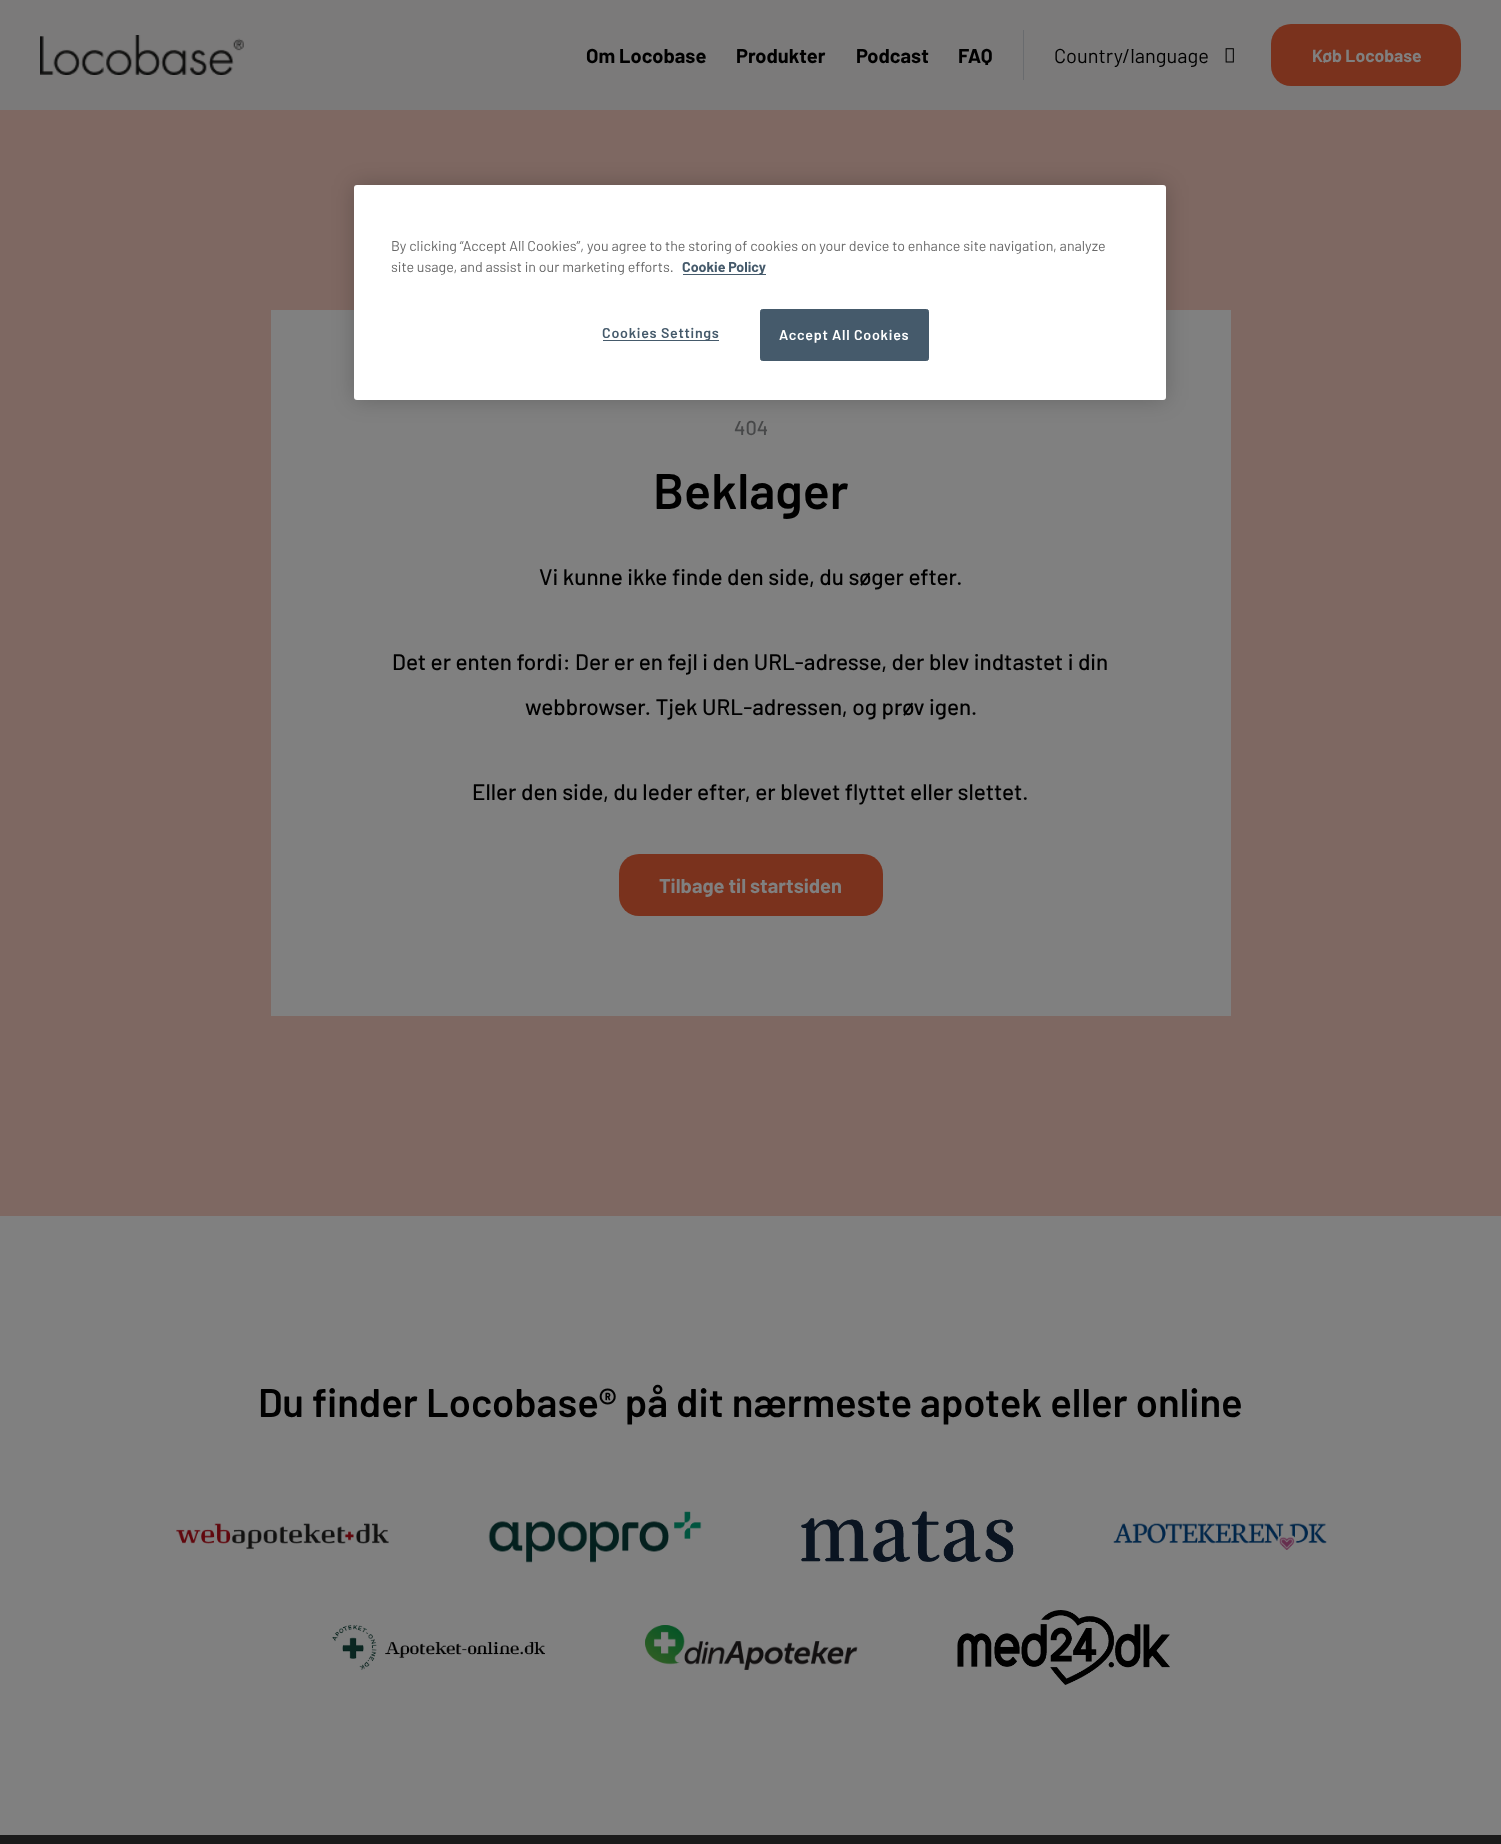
<svg xmlns="http://www.w3.org/2000/svg" width="1501" height="1844" viewBox="0 0 1501 1844">
  <rect width="100%" height="100%" fill="#808080"/>
  <path d="M0 0h1501v110H0z" fill="#7b7a7a"/>
  <image x="40" y="35" width="204" height="40" href="img/1.png"/>
  <path d="M1023 30h1v50H1023z" fill="#696b6e"/>
  <image x="1225" y="48" width="9" height="15" href="img/2.png"/>
  <rect x="1271" y="24" width="190" height="62" rx="20" fill="#7a321d"/>
  <path d="M0 110h1501v1106H0z" fill="#7e6862"/>
  <path d="M271 310h960v706H271z" fill="#808080"/>
  <rect x="619" y="854" width="264" height="62" rx="20" fill="#7a321d"/>
  <image x="176" y="1523" width="213" height="27" href="img/3.png"/>
  <image x="488" y="1511" width="214" height="52" href="img/4.png"/>
  <image x="801" y="1511" width="213" height="52" href="img/5.png"/>
  <image x="1113" y="1523" width="214" height="27" href="img/6.png"/>
  <image x="332" y="1625" width="213" height="45" href="img/7.png"/>
  <image x="645" y="1625" width="213" height="45" href="img/8.png"/>
  <image x="957" y="1610" width="213" height="75" href="img/9.png"/>
  <path d="M0 1835h1501v9H0z" fill="#1a1a1a"/>
  <rect x="354" y="185" width="812" height="215" rx="3" fill="#00000033" filter="blur(11px)"/>
  <rect x="354" y="185" width="812" height="215" rx="3" fill="#fff"/>
  <path d="M683 274h83v1H683z" fill="#455a6b"/>
  <path d="M603 340h116v1H603z" fill="#455a6b"/>
  <rect x="760.5" y="309.5" width="168" height="51" rx="2" fill="#455a6b" stroke="#455a6b"/>
  <g font-family="Barlow" font-size="20" font-weight="bold" fill="#000">
    <text x="586" y="63">Om Locobase</text>
    <text x="736" y="63">Produkter</text>
    <text x="856" y="63">Podcast</text>
    <text x="958" y="63">FAQ</text>
  </g>
  <text x="1054" y="63" font-family="Barlow" font-size="20" fill="#000">Country/language</text>
  <text x="1312" y="62" font-family="Barlow" font-size="17.5" font-weight="bold" fill="#808080">Køb Locobase</text>
  <text x="734" y="435" font-family="Barlow" font-size="20" font-weight="500" fill="#474849">404</text>
  <text x="653" y="509" font-family="Barlow" font-size="50" font-weight="600" fill="#000">Beklager</text>
  <g font-family="Barlow" font-size="22.5" font-weight="500" fill="#000">
    <text x="539" y="585">Vi kunne ikke finde den side, du søger efter.</text>
    <text x="392" y="670">Det er enten fordi: Der er en fejl i den URL-adresse, der blev indtastet i din</text>
    <text x="525" y="715">webbrowser. Tjek URL-adressen, og prøv igen.</text>
    <text x="472" y="800">Eller den side, du leder efter, er blevet flyttet eller slettet.</text>
  </g>
  <text x="659" y="893" font-family="Barlow" font-size="20" font-weight="bold" fill="#808080">Tilbage til startsiden</text>
  <text x="258" y="1417" font-family="Barlow" font-size="40" font-weight="600" fill="#000">Du finder Locobase® på dit nærmeste apotek eller online</text>
  <g font-family="Barlow" font-size="14.23" fill="#696969">
    <text x="391" y="251">By clicking “Accept All Cookies”, you agree to the storing of cookies on your device to enhance site navigation, analyze</text>
    <text x="391" y="272">site usage, and assist in our marketing efforts.</text>
  </g>
  <text x="682" y="272" font-family="Barlow" font-size="14.23" font-weight="bold" fill="#455a6b">Cookie Policy</text>
  <text x="602" y="338" font-family="Barlow" font-size="14.23" font-weight="600" letter-spacing="0.75" fill="#455a6b">Cookies Settings</text>
  <text x="779" y="340" font-family="Barlow" font-size="14.23" font-weight="600" letter-spacing="0.75" fill="#fff">Accept All Cookies</text>
</svg>
